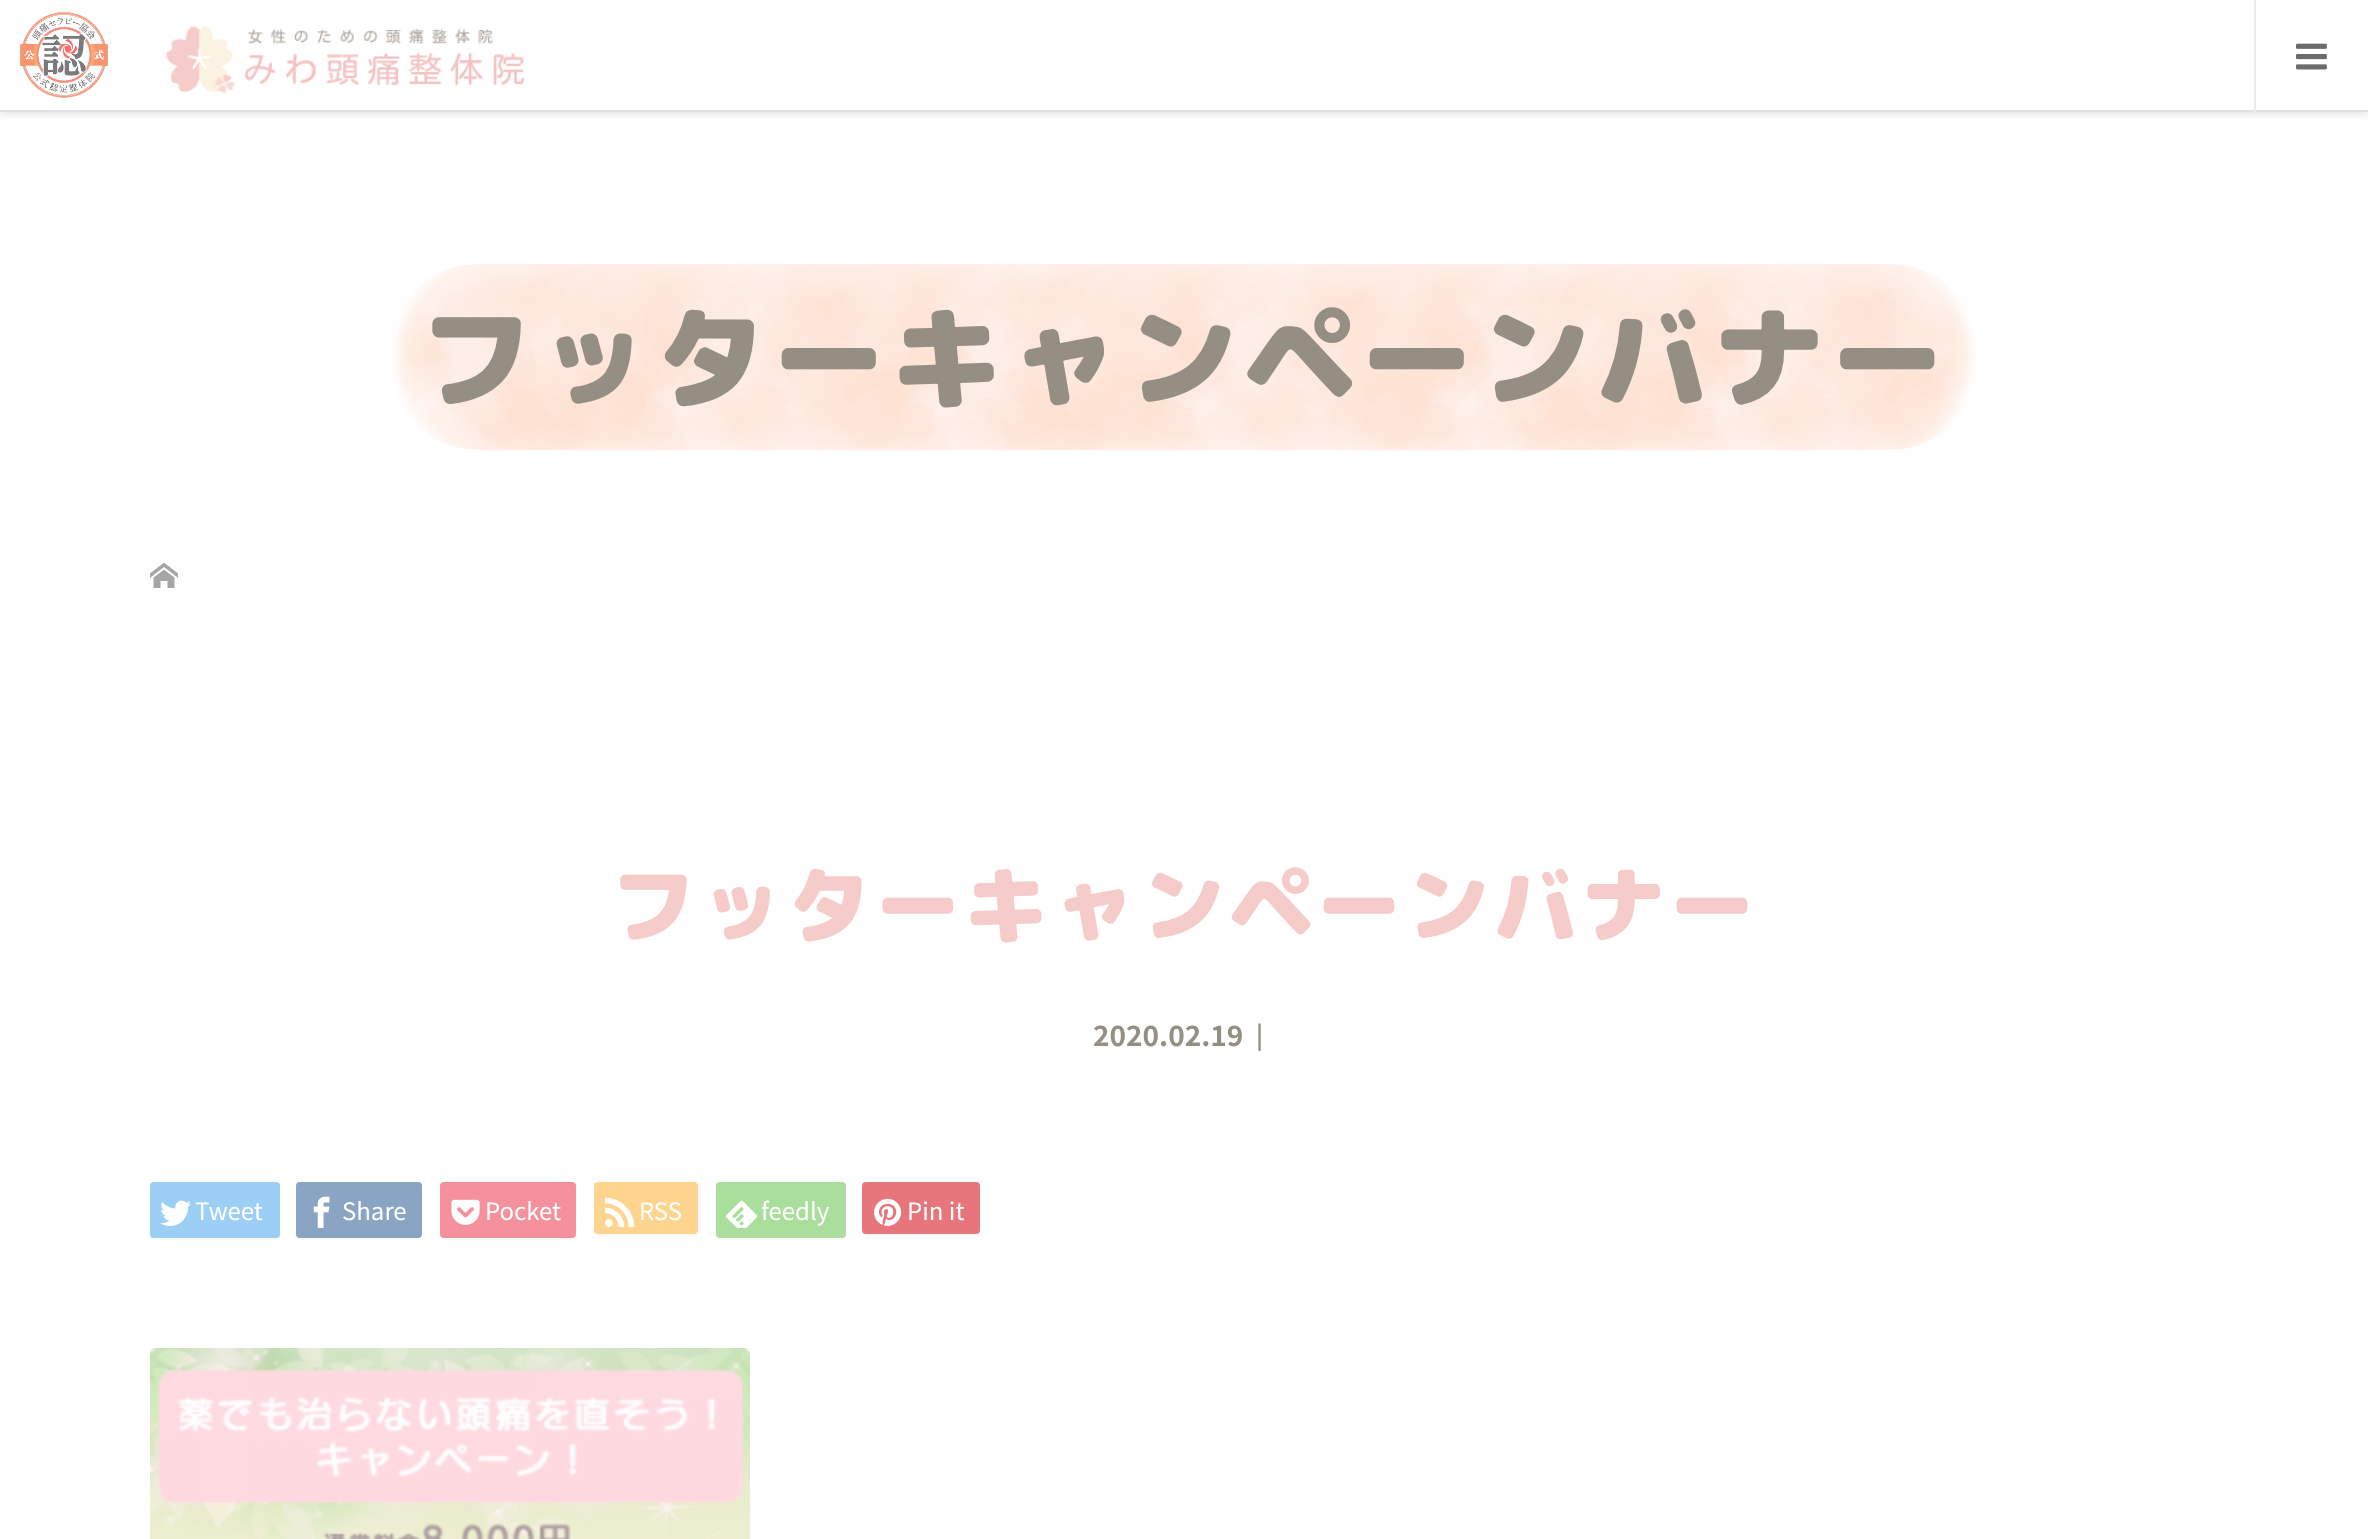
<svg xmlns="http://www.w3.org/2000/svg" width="2368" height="1539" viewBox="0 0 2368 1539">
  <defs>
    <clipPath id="clip1"><path d="M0 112h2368v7H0z"/></clipPath>
  </defs>
  <rect width="100%" height="100%" fill="#fff"/>
  <g clip-path="url(#clip1)">
    <path d="M0 2h2368v112H0z" fill="#6b6b6b33" filter="blur(4px)"/>
  </g>
  <path d="M0 110h2368v2H0z" fill="#e1e1e1"/>
  <image x="20" y="12" width="88" height="86" href="img/1.png"/>
  <image x="166" y="25" width="359" height="69" href="img/2.png"/>
  <path d="M2254 0h2v112H2254z" fill="#ebebeb"/>
  <image x="2296" y="43" width="31" height="27" href="img/3.png"/>
  <image x="391" y="264" width="1586" height="186" href="img/4.png"/>
  <image x="150" y="562" width="28" height="26" href="img/5.png"/>
  <path d="M150 1234V1236C150 1238 152 1240 154 1240H276C278 1240 280 1238 280 1236V1234C280 1236 278 1238 276 1238H154C152 1238 150 1236 150 1234Z" fill="#fafafa"/>
  <rect x="150" y="1182" width="130" height="56" rx="4" fill="#9ccff5"/>
  <image x="160" y="1200" width="31" height="26" href="img/6.png"/>
  <path d="M296 1234V1236C296 1238 298 1240 300 1240H418C420 1240 422 1238 422 1236V1234C422 1236 420 1238 418 1238H300C298 1238 296 1236 296 1234Z" fill="#fafafa"/>
  <rect x="296" y="1182" width="126" height="56" rx="4" fill="#8aa4c4"/>
  <image x="313" y="1196" width="17" height="32" href="img/7.png"/>
  <path d="M440 1234V1236C440 1238 442 1240 444 1240H572C574 1240 576 1238 576 1236V1234C576 1236 574 1238 572 1238H444C442 1238 440 1236 440 1234Z" fill="#fafafa"/>
  <rect x="440" y="1182" width="136" height="56" rx="4" fill="#f5909d"/>
  <image x="451" y="1199" width="29" height="26" href="img/8.png"/>
  <path d="M594 1230V1232C594 1234 596 1236 598 1236H694C696 1236 698 1234 698 1232V1230C698 1232 696 1234 694 1234H598C596 1234 594 1232 594 1230Z" fill="#fafafa"/>
  <rect x="594" y="1182" width="104" height="52" rx="4" fill="#ffd48e"/>
  <image x="604" y="1197" width="31" height="30" href="img/9.png"/>
  <path d="M716 1234V1236C716 1238 718 1240 720 1240H842C844 1240 846 1238 846 1236V1234C846 1236 844 1238 842 1238H720C718 1238 716 1236 716 1234Z" fill="#fafafa"/>
  <rect x="716" y="1182" width="130" height="56" rx="4" fill="#aade9c"/>
  <image x="726" y="1200" width="32" height="28" href="img/10.png"/>
  <path d="M862 1230V1232C862 1234 864 1236 866 1236H976C978 1236 980 1234 980 1232V1230C980 1232 978 1234 976 1234H866C864 1234 862 1232 862 1230Z" fill="#fafafa"/>
  <rect x="862" y="1182" width="118" height="52" rx="4" fill="#e6767b"/>
  <image x="874" y="1198" width="28" height="28" href="img/11.png"/>
  <image x="150" y="1348" width="600" height="191" href="img/12.png"/>
  <text x="420" y="399" font-family="'Rounded Mplus 1c'" font-size="112" font-weight="900" letter-spacing="5.6" fill="#948e83">フッターキャンペーンバナー</text>
  <text x="611" y="936" font-family="'Rounded Mplus 1c'" font-size="84" font-weight="900" letter-spacing="4.25" fill="#f6ccca">フッターキャンペーンバナー</text>
  <text x="1093" y="1046" font-family="Noto Sans JP" font-size="28" font-weight="bold" fill="#948e83">2020.02.19</text>
  <text x="1256" y="1044" font-family="Noto Sans JP" font-size="24" font-weight="bold" fill="#948e83">|</text>
  <g font-family="Noto Sans JP" font-size="24" fill="#fff">
    <text x="195" y="1220">Tweet</text>
    <text x="342" y="1220">Share</text>
    <text x="485" y="1220">Pocket</text>
    <text x="639" y="1220">RSS</text>
    <text x="761" y="1220">feedly</text>
    <text x="907" y="1220">Pin it</text>
  </g>
</svg>
